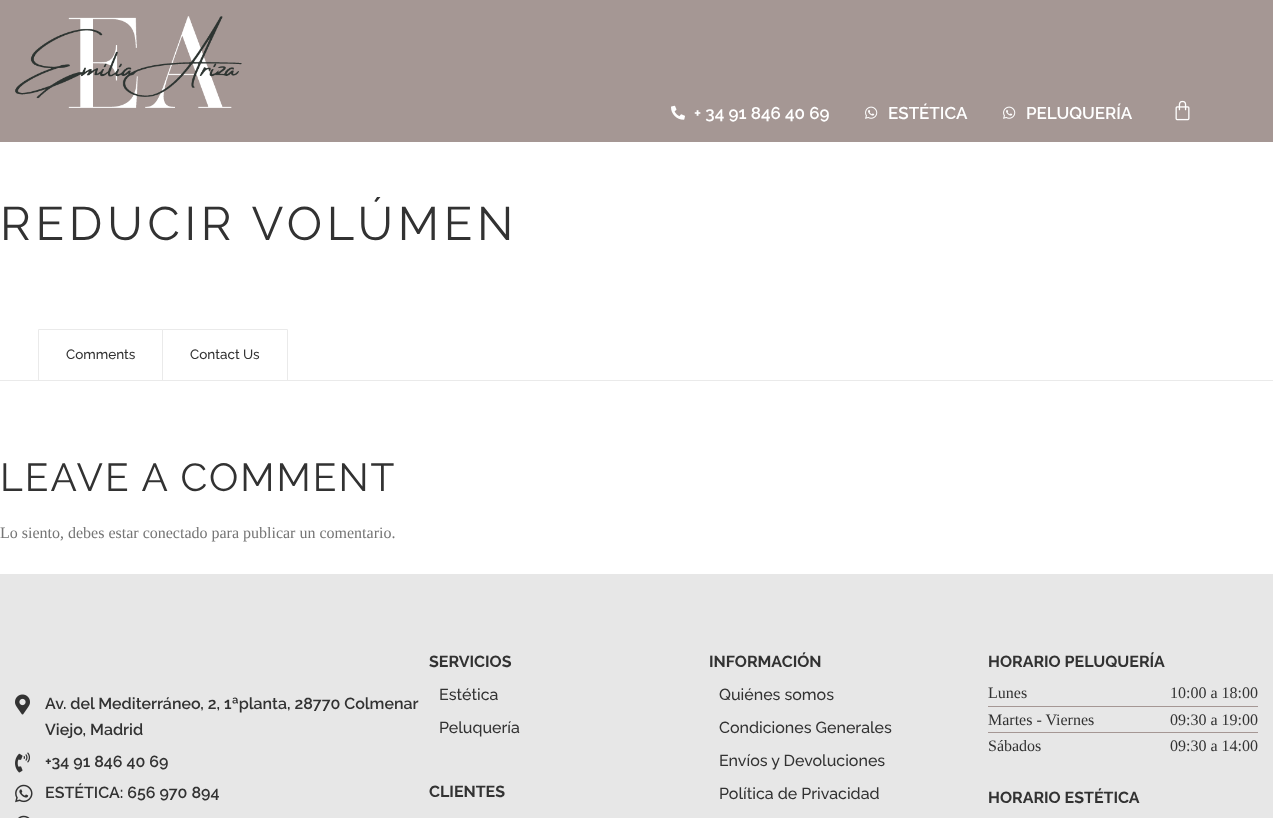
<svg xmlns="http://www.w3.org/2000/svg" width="1273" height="818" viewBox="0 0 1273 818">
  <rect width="100%" height="100%" fill="#fff"/>
  <path d="M0 0h1273v142H0z" fill="#a59794"/>
  <image x="15" y="16" width="227" height="92" href="img/1.png"/>
  <image x="671" y="105" width="14" height="15" href="img/2.png"/>
  <image x="865" y="106" width="13" height="13" href="img/3.png"/>
  <image x="1003" y="106" width="13" height="13" href="img/3.png"/>
  <image x="1175" y="100" width="15" height="21" href="img/4.png"/>
  <path d="M0 380h1273v1H0z" fill="#eaeaea"/>
  <path d="M38.5 329.5h124v51H38.5z" fill="none" stroke="#eaeaea"/>
  <path d="M162.5 329.5h125v51H162.5z" fill="none" stroke="#eaeaea"/>
  <path d="M0 574h1273v244H0z" fill="#e7e7e7"/>
  <image x="15" y="694" width="15" height="21" href="img/5.png"/>
  <image x="15" y="752" width="15" height="21" href="img/6.png"/>
  <image x="15" y="784" width="18" height="19" href="img/7.png"/>
  <image x="18" y="815" width="12" height="3" href="img/8.png"/>
  <path d="M988 706h270v1H988z" fill="#a59794"/>
  <path d="M988 732h270v1H988z" fill="#a59794"/>
  <g font-family="Raleway" font-size="17" font-weight="600" fill="#fff">
    <text x="694" y="119">+ 34 91 846 40 69</text>
    <text x="888" y="119">ESTÉTICA</text>
    <text x="1026" y="119">PELUQUERÍA</text>
  </g>
  <text x="0" y="240" font-family="Raleway" font-size="47" letter-spacing="4.75" fill="#323232">REDUCIR VOLÚMEN</text>
  <g font-family="Raleway" font-size="13.5" font-weight="500" fill="#323232">
    <text x="66" y="359">Comments</text>
    <text x="190" y="359">Contact Us</text>
  </g>
  <text x="0" y="491" font-family="Raleway" font-size="39" letter-spacing="2" fill="#323232">LEAVE A COMMENT</text>
  <text x="0" y="538" font-family="Liberation Serif" font-size="16" fill="#757575">Lo siento, debes estar conectado para publicar un comentario.</text>
  <g font-family="Raleway" font-size="16" font-weight="600" fill="#323232">
    <text x="45" y="709">Av. del Mediterráneo, 2, 1ªplanta, 28770 Colmenar</text>
    <text x="45" y="735">Viejo, Madrid</text>
    <text x="45" y="767">+34 91 846 40 69</text>
    <text x="45" y="798">ESTÉTICA: 656 970 894</text>
  </g>
  <text x="429" y="667" font-family="Raleway" font-size="16" font-weight="bold" fill="#323232">SERVICIOS</text>
  <g font-family="Raleway" font-size="16" font-weight="500" fill="#323232">
    <text x="439" y="700">Estética</text>
    <text x="439" y="733">Peluquería</text>
  </g>
  <g font-family="Raleway" font-size="16" font-weight="bold" fill="#323232">
    <text x="429" y="797">CLIENTES</text>
    <text x="709" y="667">INFORMACIÓN</text>
  </g>
  <g font-family="Raleway" font-size="16" font-weight="500" fill="#323232">
    <text x="719" y="700">Quiénes somos</text>
    <text x="719" y="733">Condiciones Generales</text>
    <text x="719" y="766">Envíos y Devoluciones</text>
    <text x="719" y="799">Política de Privacidad</text>
  </g>
  <text x="988" y="667" font-family="Raleway" font-size="16" font-weight="bold" fill="#323232">HORARIO PELUQUERÍA</text>
  <g font-family="Liberation Serif" font-size="16" fill="#323232">
    <text x="988" y="698">Lunes</text>
    <text x="1170" y="698">10:00 a 18:00</text>
    <text x="988" y="725">Martes - Viernes</text>
    <text x="1170" y="725">09:30 a 19:00</text>
    <text x="988" y="751">Sábados</text>
    <text x="1170" y="751">09:30 a 14:00</text>
  </g>
  <text x="988" y="803" font-family="Raleway" font-size="16" font-weight="bold" fill="#323232">HORARIO ESTÉTICA</text>
</svg>
